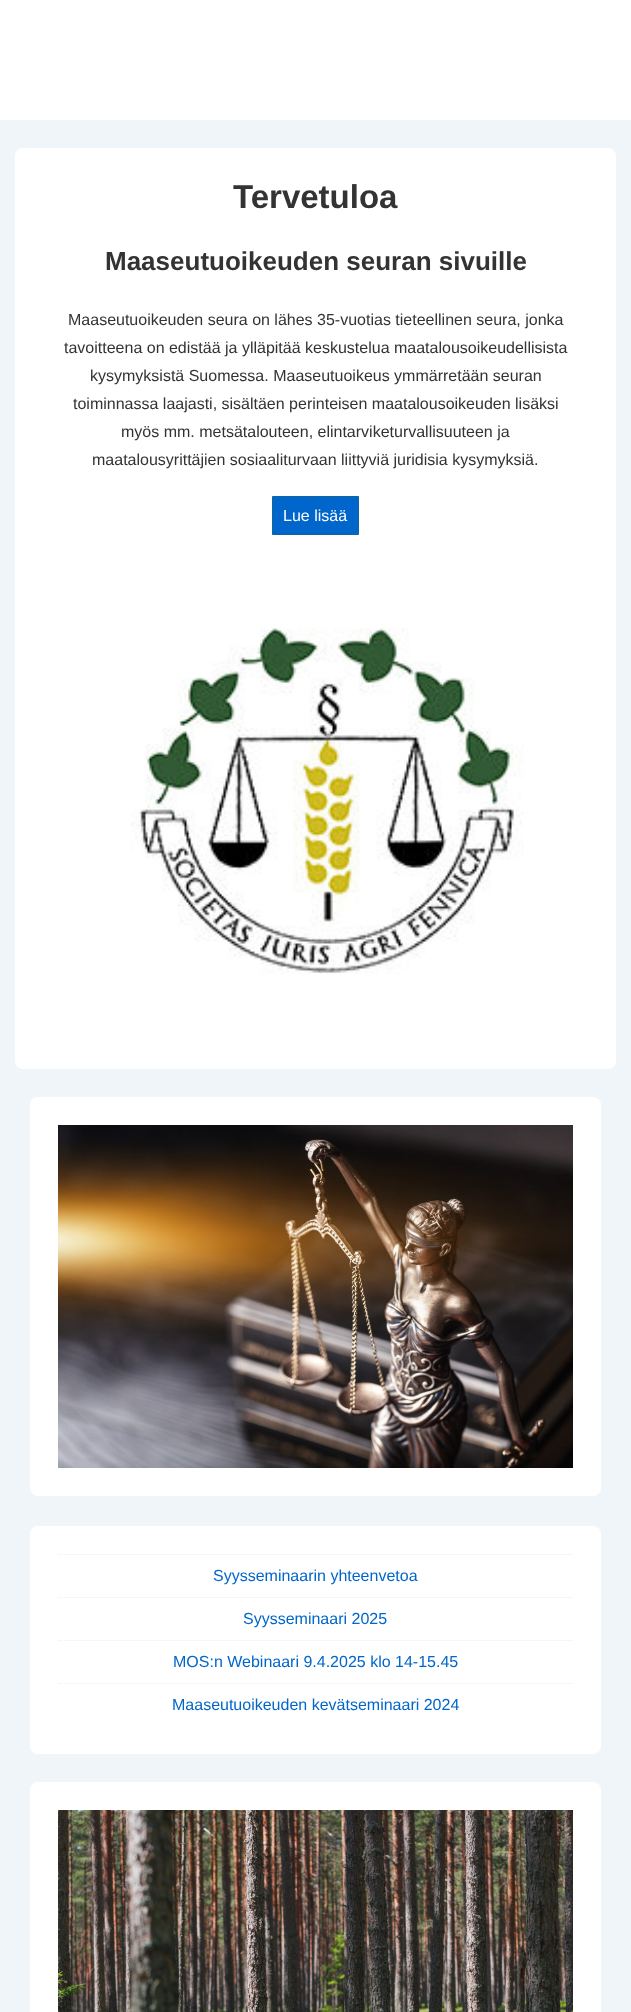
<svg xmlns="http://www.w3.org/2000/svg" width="631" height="2012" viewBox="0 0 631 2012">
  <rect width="100%" height="100%" fill="#f0f5fa"/>
  <path d="M0 0h631v120H0z" fill="#fff"/>
  <rect x="15" y="148" width="601" height="921" rx="8" fill="#fff"/>
  <path d="M272.5 496.5h86v38H272.5z" fill="#06c" stroke="#10659c"/>
  <image x="131" y="628" width="393" height="346" href="img/1.png"/>
  <rect x="30" y="1097" width="571" height="399" rx="8" fill="#fff"/>
  <image x="58" y="1125" width="515" height="343" href="img/2.png"/>
  <rect x="30" y="1526" width="571" height="228" rx="8" fill="#fff"/>
  <path d="M58 1554.5H573" fill="none" stroke="#eee" stroke-dasharray="1 1"/>
  <path d="M58 1597.5H573" fill="none" stroke="#eee" stroke-dasharray="1 1"/>
  <path d="M58 1640.5H573" fill="none" stroke="#eee" stroke-dasharray="1 1"/>
  <path d="M58 1683.5H573" fill="none" stroke="#eee" stroke-dasharray="1 1"/>
  <rect x="30" y="1782" width="571" height="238" rx="8" fill="#fff"/>
  <image x="58" y="1810" width="515" height="202" href="img/3.png"/>
  <text x="233" y="208" font-family="Liberation Sans" font-size="33" font-weight="bold" fill="#333">Tervetuloa</text>
  <text x="105" y="270" font-family="Liberation Sans" font-size="26" font-weight="bold" fill="#333">Maaseutuoikeuden seuran sivuille</text>
  <g font-family="Liberation Sans" font-size="16" fill="#333">
    <text x="68" y="325">Maaseutuoikeuden seura on lähes 35-vuotias tieteellinen seura, jonka</text>
    <text x="64" y="353">tavoitteena on edistää ja ylläpitää keskustelua maatalousoikeudellisista</text>
    <text x="90" y="381">kysymyksistä Suomessa. Maaseutuoikeus ymmärretään seuran</text>
    <text x="73" y="409">toiminnassa laajasti, sisältäen perinteisen maatalousoikeuden lisäksi</text>
    <text x="121" y="437">myös mm. metsätalouteen, elintarviketurvallisuuteen ja</text>
    <text x="92" y="465">maatalousyrittäjien sosiaaliturvaan liittyviä juridisia kysymyksiä.</text>
  </g>
  <text x="283" y="521" font-family="Liberation Sans" font-size="16" fill="#fff">Lue lisää</text>
  <g font-family="Liberation Sans" font-size="16" fill="#06c">
    <text x="213" y="1581">Syysseminaarin yhteenvetoa</text>
    <text x="243" y="1624">Syysseminaari 2025</text>
    <text x="173" y="1667">MOS:n Webinaari 9.4.2025 klo 14-15.45</text>
    <text x="172" y="1710">Maaseutuoikeuden kevätseminaari 2024</text>
  </g>
</svg>
